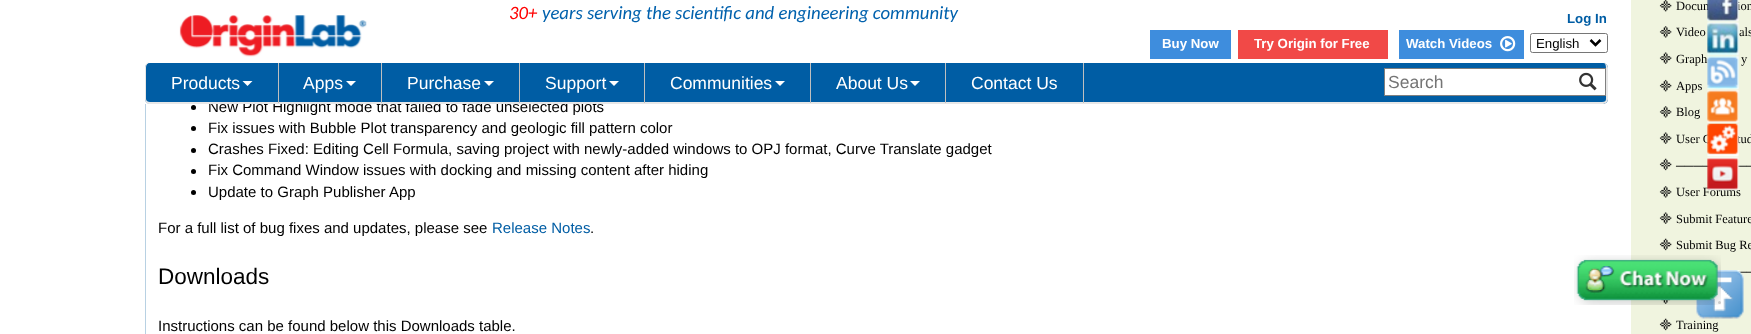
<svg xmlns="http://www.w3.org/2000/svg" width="1751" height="334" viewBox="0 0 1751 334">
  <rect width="100%" height="100%" fill="#fff"/>
  <path d="M1631 0h120v334H1631z" fill="#f0f4df"/>
  <image x="1707" y="89" width="33" height="34" href="img/4.png"/>
  <path d="M145 104h1v230H145z" fill="#b8d1e3"/>
  <circle cx="193.5" cy="107.5" r="2.5" fill="#000"/>
  <circle cx="193.5" cy="128.5" r="2.5" fill="#000"/>
  <circle cx="193.5" cy="150.5" r="2.5" fill="#000"/>
  <circle cx="193.5" cy="171.5" r="2.5" fill="#000"/>
  <circle cx="193.5" cy="192.5" r="2.5" fill="#000"/>
  <image x="1659" y="0" width="13" height="12" href="img/7.png"/>
  <image x="1659" y="26" width="13" height="12" href="img/8.png"/>
  <image x="1659" y="52" width="13" height="12" href="img/9.png"/>
  <image x="1659" y="79" width="13" height="13" href="img/10.png"/>
  <image x="1659" y="106" width="13" height="12" href="img/8.png"/>
  <image x="1659" y="132" width="13" height="12" href="img/9.png"/>
  <image x="1659" y="158" width="13" height="13" href="img/11.png"/>
  <image x="1659" y="186" width="13" height="12" href="img/8.png"/>
  <image x="1659" y="212" width="13" height="12" href="img/9.png"/>
  <image x="1659" y="238" width="13" height="13" href="img/11.png"/>
  <image x="1661" y="299" width="10" height="5" href="img/12.png"/>
  <image x="1659" y="318" width="13" height="13" href="img/11.png"/>
  <image x="179" y="15" width="188" height="42" href="img/13.png"/>
  <path d="M1150 30h81v29H1150z" fill="#3e8ddd"/>
  <path d="M1238 30h150v29H1238z" fill="#f14947"/>
  <path d="M1399 30h125v29H1399z" fill="#3e8ddd"/>
  <image x="1500" y="36" width="16" height="16" href="img/14.png"/>
  <rect x="1530.5" y="33.5" width="77" height="19" rx="2" fill="none" stroke="#767676"/>
  <path d="M1590.5 40L1595.5 45L1600.5 40" fill="none" stroke="#000" stroke-width="2.5"/>
  <g font-family="Liberation Sans" font-size="15" fill="#000">
    <text x="208" y="112">New Plot Highlight mode that failed to fade unselected plots</text>
    <text x="208" y="133">Fix issues with Bubble Plot transparency and geologic fill pattern color</text>
    <text x="208" y="154">Crashes Fixed: Editing Cell Formula, saving project with newly-added windows to OPJ format, Curve Translate gadget</text>
    <text x="208" y="175">Fix Command Window issues with docking and missing content after hiding</text>
    <text x="208" y="197">Update to Graph Publisher App</text>
    <text x="158" y="233">For a full list of bug fixes and updates, please see</text>
  </g>
  <text x="492" y="233" font-family="Liberation Sans" font-size="15" fill="#005da4">Release Notes</text>
  <text x="590" y="233" font-family="Liberation Sans" font-size="15" fill="#000">.</text>
  <text x="158" y="284" font-family="Liberation Sans" font-size="22.5" fill="#000">Downloads</text>
  <text x="158" y="331" font-family="Liberation Sans" font-size="15" fill="#000">Instructions can be found below this Downloads table.</text>
  <g font-family="Liberation Serif" font-size="12.5" fill="#000">
    <text x="1676" y="10">Docum</text>
    <text x="1737" y="10">ion</text>
  </g>
  <image x="1707" y="0" width="32" height="22" href="img/1.png"/>
  <g font-family="Liberation Serif" font-size="12.5" fill="#000">
    <text x="1676" y="36">Video</text>
    <text x="1739" y="36">als</text>
  </g>
  <image x="1707" y="22" width="33" height="34" href="img/2.png"/>
  <image x="1707" y="55" width="32" height="34" href="img/3.png"/>
  <g font-family="Liberation Serif" font-size="12.5" fill="#000">
    <text x="1676" y="63">Graph</text>
    <text x="1741" y="63">y</text>
    <text x="1676" y="90">Apps</text>
    <text x="1676" y="116">Blog</text>
    <text x="1676" y="143">User C</text>
    <text x="1737" y="143">tud</text>
  </g>
  <image x="1707" y="123" width="32" height="34" href="img/5.png"/>
  <g font-family="Liberation Serif" font-size="12.5" fill="#000">
    <text x="1676" y="170">────</text>
    <text x="1738" y="170">──</text>
    <text x="1676" y="196">User Forums</text>
  </g>
  <image x="1707" y="157" width="33" height="34" href="img/6.png"/>
  <g font-family="Liberation Serif" font-size="12.5" fill="#000">
    <text x="1676" y="223">Submit Feature</text>
    <text x="1676" y="249">Submit Bug Re</text>
    <text x="1738" y="276">──</text>
    <text x="1676" y="329">Training</text>
  </g>
  <path d="M209 101h392v3H209z" fill="#fff"/>
  <text x="509" y="19" font-family="Carlito" font-size="18.75" font-style="italic" fill="#f00">30+</text>
  <text x="542" y="19" font-family="Carlito" font-size="18.75" font-style="italic" fill="#0061ad">years serving the scientific and engineering community</text>
  <text x="1567" y="23" font-family="Liberation Sans" font-size="13.25" font-weight="bold" fill="#005da4">Log In</text>
  <g font-family="Liberation Sans" font-size="13.25" font-weight="bold" fill="#fff">
    <text x="1162" y="48">Buy Now</text>
    <text x="1254" y="48">Try Origin for Free</text>
    <text x="1406" y="48">Watch Videos</text>
  </g>
  <text x="1536" y="48" font-family="Liberation Sans" font-size="13.25" fill="#000">English</text>
  <rect x="145" y="63" width="1463" height="41" rx="5" fill="#005da4"/>
  <path d="M150 62H1602C1605 62 1608 65 1608 68V99C1608 102 1605 104 1602 104H150C147 104 145 102 145 99V68C145 65 147 62 150 62ZM150 62H1602C1605 62 1606 65 1606 68V99C1606 101 1605 102 1602 102H150C148 102 146 101 146 99V68C146 65 148 62 150 62Z" fill="#e7e7e7" fill-rule="evenodd"/>
  <path d="M278 63h1v40H278z" fill="#bfbfbf"/>
  <text x="171" y="89" font-family="Liberation Sans" font-size="17.5" fill="#fff">Products</text>
  <path d="M242.5 81H252.5L247.5 86Z" fill="#fff"/>
  <path d="M381 63h1v40H381z" fill="#bfbfbf"/>
  <text x="303" y="89" font-family="Liberation Sans" font-size="17.5" fill="#fff">Apps</text>
  <path d="M346 81H356L351 86Z" fill="#fff"/>
  <path d="M519 63h1v40H519z" fill="#bfbfbf"/>
  <text x="407" y="89" font-family="Liberation Sans" font-size="17.5" fill="#fff">Purchase</text>
  <path d="M484 81H494L489 86Z" fill="#fff"/>
  <path d="M644 63h1v40H644z" fill="#bfbfbf"/>
  <text x="545" y="89" font-family="Liberation Sans" font-size="17.5" fill="#fff">Support</text>
  <path d="M609 81H619L614 86Z" fill="#fff"/>
  <path d="M810 63h1v40H810z" fill="#bfbfbf"/>
  <text x="670" y="89" font-family="Liberation Sans" font-size="17.5" fill="#fff">Communities</text>
  <path d="M775 81H785L780 86Z" fill="#fff"/>
  <path d="M945 63h1v40H945z" fill="#bfbfbf"/>
  <text x="836" y="89" font-family="Liberation Sans" font-size="17.5" fill="#fff">About Us</text>
  <path d="M910 81H920L915 86Z" fill="#fff"/>
  <path d="M1083 63h1v40H1083z" fill="#bfbfbf"/>
  <text x="971" y="89" font-family="Liberation Sans" font-size="17.5" fill="#fff">Contact Us</text>
  <path d="M1385 69h220v26H1385z" fill="#fff"/>
  <path d="M1384 68h222v1H1384z" fill="#808080"/>
  <path d="M1384 95h187v1H1384z" fill="#808080"/>
  <path d="M1384 68h1v28H1384z" fill="#808080"/>
  <text x="1388" y="88" font-family="Liberation Sans" font-size="17.5" fill="#757575">Search</text>
  <path d="M1605 68h1v28H1605z" fill="#808080"/>
  <path d="M1571 95h35v1H1571z" fill="#808080"/>
  <image x="1579" y="72" width="18" height="19" href="img/15.png"/>
  <image x="1695" y="270" width="49" height="49" href="img/17.png"/>
  <image x="1574" y="255" width="147" height="50" href="img/16.png"/>
  <circle cx="1719.5" cy="302.5" r="1.5" fill="#ccc"/>
</svg>
